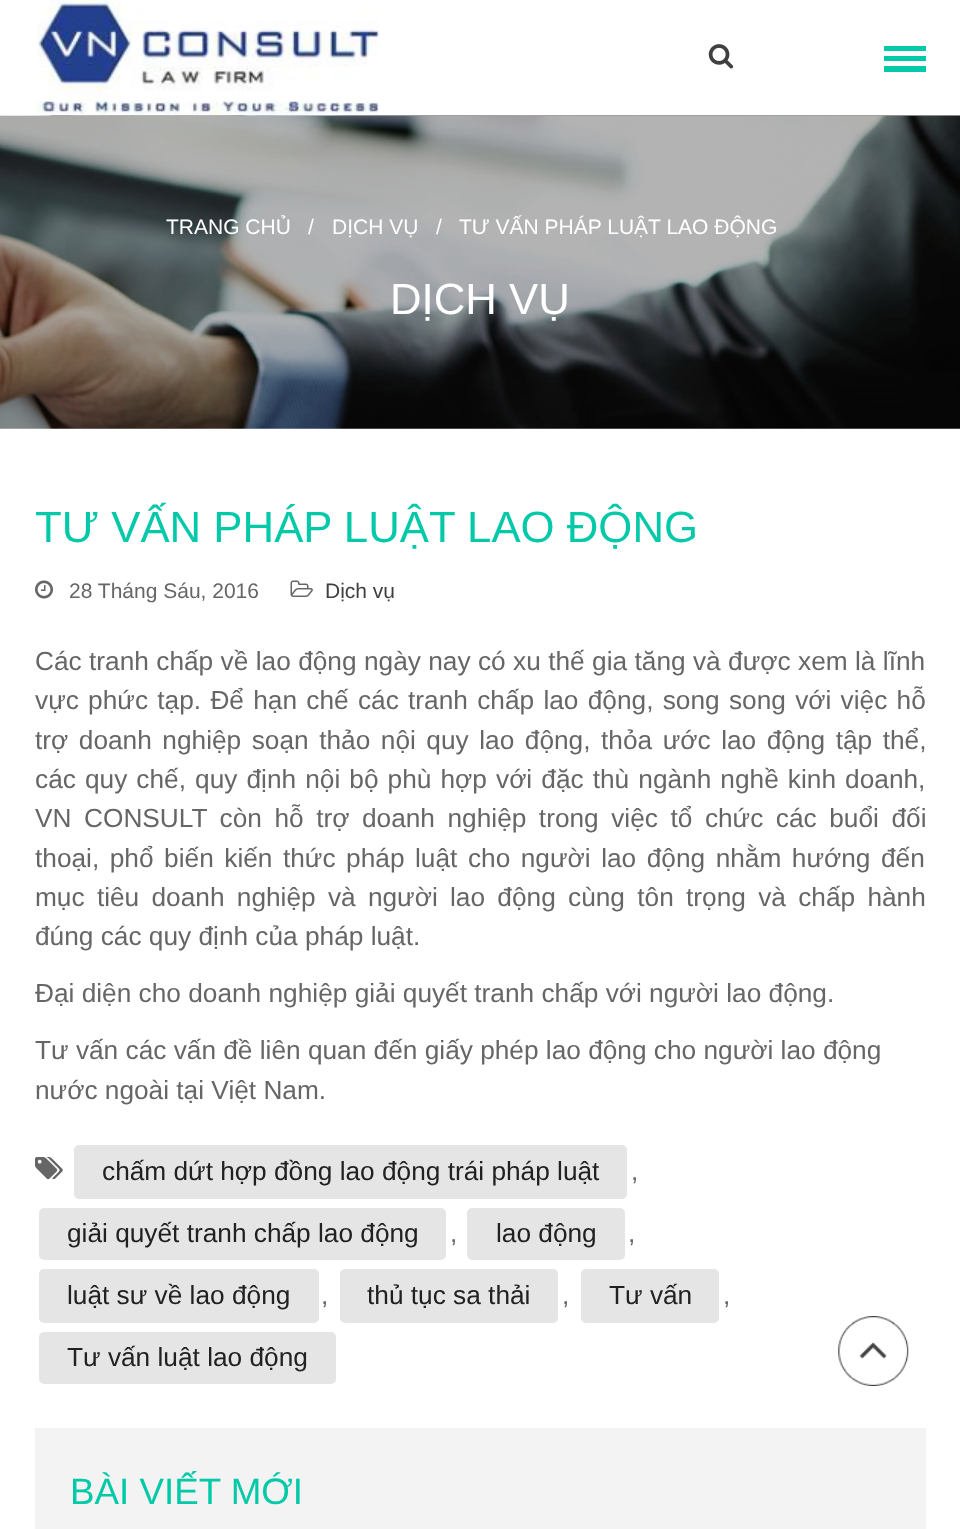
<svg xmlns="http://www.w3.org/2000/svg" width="960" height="1529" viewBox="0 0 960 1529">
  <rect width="100%" height="100%" fill="#fff"/>
  <image x="35" y="0" width="345" height="115" href="img/1.png"/>
  <image x="708" y="44" width="26" height="25" href="img/2.png"/>
  <path d="M884 46V51H926V46ZM884 56V61H926V56ZM884 66V72H926V66Z" fill="#03c9a9"/>
  <image x="0" y="115" width="960" height="314" href="img/3.png"/>
  <image x="35" y="580" width="18" height="19" href="img/4.png"/>
  <image x="290" y="580" width="23" height="17" href="img/5.png"/>
  <image x="35" y="1157" width="28" height="23" href="img/6.png"/>
  <rect x="75" y="1146" width="551" height="52" rx="4" fill="#e5e5e5" stroke="#e5e5e5" stroke-width="2"/>
  <rect x="40" y="1209" width="405" height="50" rx="4" fill="#e5e5e5" stroke="#e5e5e5" stroke-width="2"/>
  <rect x="468" y="1209" width="156" height="50" rx="4" fill="#e5e5e5" stroke="#e5e5e5" stroke-width="2"/>
  <rect x="40" y="1270" width="278" height="52" rx="4" fill="#e5e5e5" stroke="#e5e5e5" stroke-width="2"/>
  <rect x="341" y="1270" width="216" height="52" rx="4" fill="#e5e5e5" stroke="#e5e5e5" stroke-width="2"/>
  <rect x="582" y="1270" width="136" height="52" rx="4" fill="#e5e5e5" stroke="#e5e5e5" stroke-width="2"/>
  <rect x="40" y="1333" width="295" height="50" rx="4" fill="#e5e5e5" stroke="#e5e5e5" stroke-width="2"/>
  <path d="M35 1428h891v101H35z" fill="#f3f3f3"/>
  <image x="838" y="1316" width="71" height="70" href="img/7.png"/>
  <g font-family="Liberation Sans" font-size="21" fill="#fff">
    <text x="166" y="234">TRANG CHỦ</text>
    <text x="308" y="234">/</text>
    <text x="332" y="234">DỊCH VỤ</text>
    <text x="436" y="234">/</text>
    <text x="459" y="234">TƯ VẤN PHÁP LUẬT LAO ĐỘNG</text>
  </g>
  <text x="390" y="314" font-family="Liberation Sans" font-size="43.75" fill="#fff">DỊCH VỤ</text>
  <text x="35" y="542" font-family="Liberation Sans" font-size="43.75" fill="#03c9a9">TƯ VẤN PHÁP LUẬT LAO ĐỘNG</text>
  <text x="69" y="598" font-family="Liberation Sans" font-size="21" fill="#666">28 Tháng Sáu, 2016</text>
  <text x="325" y="598" font-family="Liberation Sans" font-size="21" fill="#404040">Dịch vụ</text>
  <g font-family="Liberation Sans" font-size="26.25" fill="#666">
    <text x="35" y="670" word-spacing="0.1">Các tranh chấp về lao động ngày nay có xu thế gia tăng và được xem là lĩnh</text>
    <text x="35" y="709" word-spacing="2">vực phức tạp. Để hạn chế các tranh chấp lao động, song song với việc hỗ</text>
    <text x="35" y="749" word-spacing="3.25">trợ doanh nghiệp soạn thảo nội quy lao động, thỏa ước lao động tập thể,</text>
    <text x="35" y="788" word-spacing="1.8">các quy chế, quy định nội bộ phù hợp với đặc thù ngành nghề kinh doanh,</text>
    <text x="35" y="827" word-spacing="5.25">VN CONSULT còn hỗ trợ doanh nghiệp trong việc tổ chức các buổi đối</text>
    <text x="35" y="867" word-spacing="3.25">thoại, phổ biến kiến thức pháp luật cho người lao động nhằm hướng đến</text>
    <text x="35" y="906" word-spacing="5">mục tiêu doanh nghiệp và người lao động cùng tôn trọng và chấp hành</text>
    <text x="35" y="945">đúng các quy định của pháp luật.</text>
    <text x="35" y="1002">Đại diện cho doanh nghiệp giải quyết tranh chấp với người lao động.</text>
    <text x="35" y="1059">Tư vấn các vấn đề liên quan đến giấy phép lao động cho người lao động</text>
    <text x="35" y="1099">nước ngoài tại Việt Nam.</text>
  </g>
  <text x="102" y="1180" font-family="Liberation Sans" font-size="26.25" fill="#212121">chấm dứt hợp đồng lao động trái pháp luật</text>
  <text x="631" y="1180" font-family="Liberation Sans" font-size="26.25" fill="#666">,</text>
  <text x="67" y="1242" font-family="Liberation Sans" font-size="26.25" fill="#212121">giải quyết tranh chấp lao động</text>
  <text x="450" y="1242" font-family="Liberation Sans" font-size="26.25" fill="#666">,</text>
  <text x="496" y="1242" font-family="Liberation Sans" font-size="26.25" fill="#212121">lao động</text>
  <text x="628" y="1242" font-family="Liberation Sans" font-size="26.25" fill="#666">,</text>
  <text x="67" y="1304" font-family="Liberation Sans" font-size="26.25" fill="#212121">luật sư về lao động</text>
  <text x="321" y="1304" font-family="Liberation Sans" font-size="26.25" fill="#666">,</text>
  <text x="367" y="1304" font-family="Liberation Sans" font-size="26.25" fill="#212121">thủ tục sa thải</text>
  <text x="562" y="1304" font-family="Liberation Sans" font-size="26.25" fill="#666">,</text>
  <text x="609" y="1304" font-family="Liberation Sans" font-size="26.25" fill="#212121">Tư vấn</text>
  <text x="723" y="1304" font-family="Liberation Sans" font-size="26.25" fill="#666">,</text>
  <text x="67" y="1366" font-family="Liberation Sans" font-size="26.25" fill="#212121">Tư vấn luật lao động</text>
  <text x="70" y="1504" font-family="Liberation Sans" font-size="36.75" fill="#03c9a9">BÀI VIẾT MỚI</text>
</svg>
